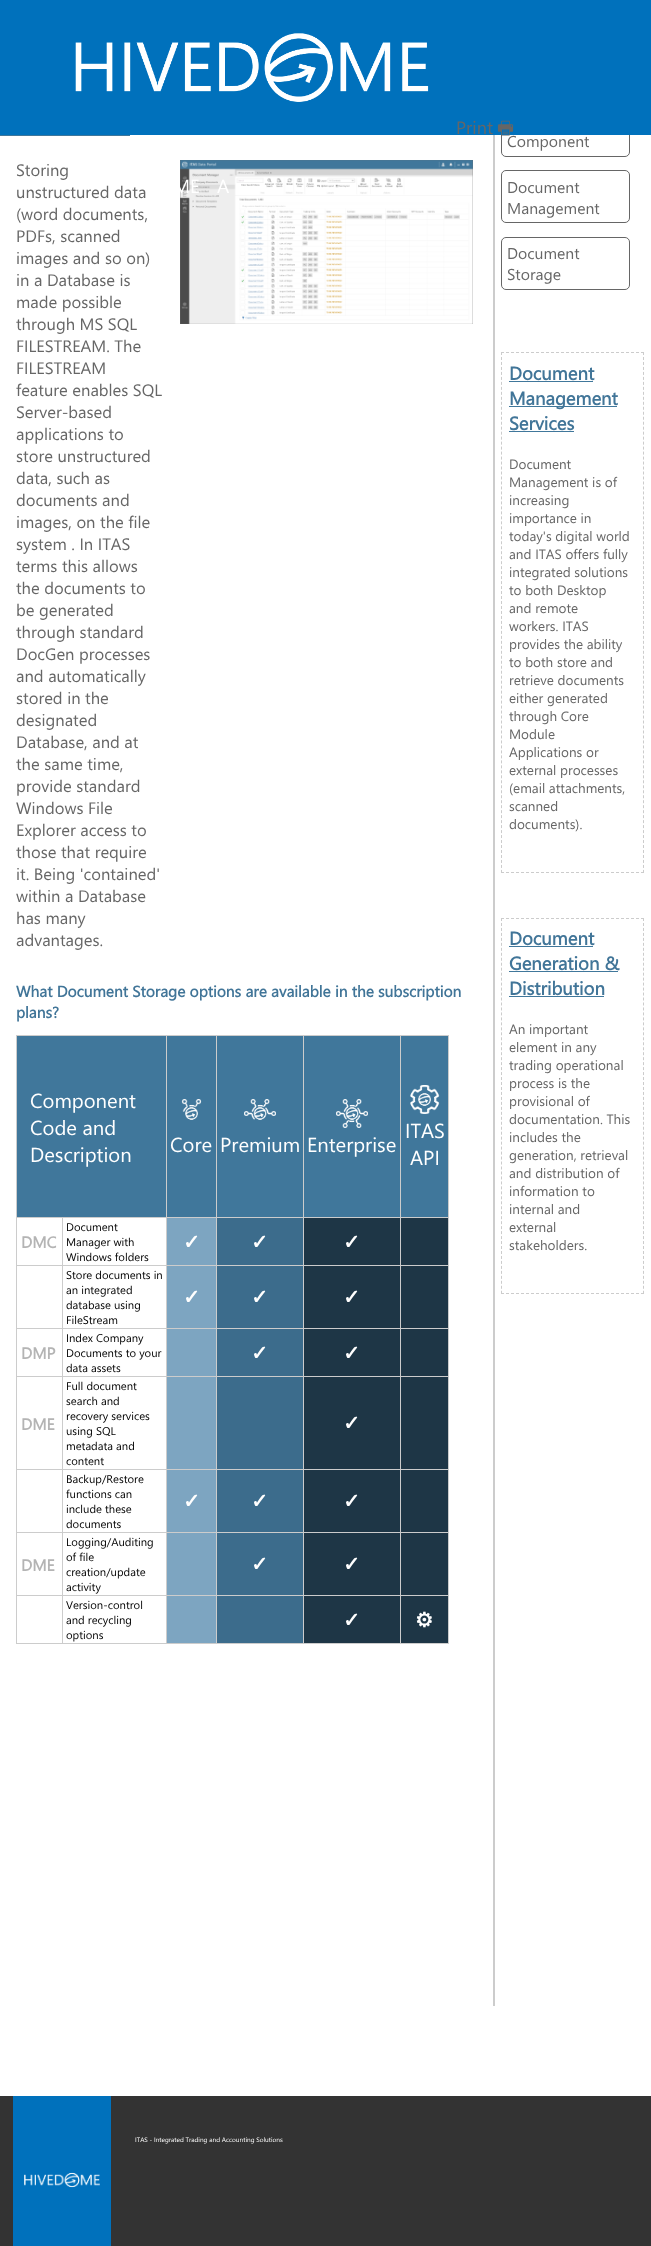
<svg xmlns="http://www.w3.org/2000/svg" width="651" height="2246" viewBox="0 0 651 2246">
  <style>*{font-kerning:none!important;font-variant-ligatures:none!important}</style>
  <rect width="100%" height="100%" fill="#fff"/>
  <path d="M0 135h130v1H0z" fill="#40779b"/>
  <image x="180" y="160" width="293" height="164" href="img/1.png"/>
  <path d="M16 1035h433v1H16z" fill="#ccc"/>
  <path d="M448 1035h1v609H448z" fill="#ccc"/>
  <path d="M16 1643h433v1H16z" fill="#ccc"/>
  <path d="M16 1035h1v609H16z" fill="#ccc"/>
  <path d="M17 1036h149v181H17z" fill="#40779b"/>
  <path d="M167 1036h49v181H167z" fill="#40779b"/>
  <path d="M400 1217h49v1H400z" fill="#ccc"/>
  <path d="M400 1265h49v1H400z" fill="#ccc"/>
  <path d="M400 1328h49v1H400z" fill="#ccc"/>
  <path d="M400 1376h49v1H400z" fill="#ccc"/>
  <path d="M400 1469h49v1H400z" fill="#ccc"/>
  <path d="M400 1532h49v1H400z" fill="#ccc"/>
  <path d="M400 1595h49v1H400z" fill="#ccc"/>
  <path d="M400 1595h1v49H400z" fill="#ccc"/>
  <path d="M303 1595h98v1H303z" fill="#ccc"/>
  <path d="M400 1532h1v64H400z" fill="#ccc"/>
  <path d="M303 1532h98v1H303z" fill="#ccc"/>
  <path d="M400 1469h1v64H400z" fill="#ccc"/>
  <path d="M303 1469h98v1H303z" fill="#ccc"/>
  <path d="M400 1376h1v94H400z" fill="#ccc"/>
  <path d="M303 1376h98v1H303z" fill="#ccc"/>
  <path d="M400 1328h1v49H400z" fill="#ccc"/>
  <path d="M303 1328h98v1H303z" fill="#ccc"/>
  <path d="M400 1265h1v64H400z" fill="#ccc"/>
  <path d="M303 1265h98v1H303z" fill="#ccc"/>
  <path d="M400 1217h1v49H400z" fill="#ccc"/>
  <path d="M303 1217h98v1H303z" fill="#ccc"/>
  <path d="M303 1595h1v49H303z" fill="#ccc"/>
  <path d="M216 1595h88v1H216z" fill="#ccc"/>
  <path d="M303 1532h1v64H303z" fill="#ccc"/>
  <path d="M216 1532h88v1H216z" fill="#ccc"/>
  <path d="M303 1469h1v64H303z" fill="#ccc"/>
  <path d="M216 1469h88v1H216z" fill="#ccc"/>
  <path d="M303 1376h1v94H303z" fill="#ccc"/>
  <path d="M216 1376h88v1H216z" fill="#ccc"/>
  <path d="M303 1328h1v49H303z" fill="#ccc"/>
  <path d="M216 1328h88v1H216z" fill="#ccc"/>
  <path d="M303 1265h1v64H303z" fill="#ccc"/>
  <path d="M216 1265h88v1H216z" fill="#ccc"/>
  <path d="M303 1217h1v49H303z" fill="#ccc"/>
  <path d="M216 1217h88v1H216z" fill="#ccc"/>
  <path d="M216 1595h1v49H216z" fill="#ccc"/>
  <path d="M166 1595h51v1H166z" fill="#ccc"/>
  <path d="M216 1532h1v64H216z" fill="#ccc"/>
  <path d="M166 1532h51v1H166z" fill="#ccc"/>
  <path d="M216 1469h1v64H216z" fill="#ccc"/>
  <path d="M166 1469h51v1H166z" fill="#ccc"/>
  <path d="M216 1376h1v94H216z" fill="#ccc"/>
  <path d="M166 1376h51v1H166z" fill="#ccc"/>
  <path d="M216 1328h1v49H216z" fill="#ccc"/>
  <path d="M166 1328h51v1H166z" fill="#ccc"/>
  <path d="M216 1265h1v64H216z" fill="#ccc"/>
  <path d="M166 1265h51v1H166z" fill="#ccc"/>
  <path d="M216 1217h1v49H216z" fill="#ccc"/>
  <path d="M166 1217h51v1H166z" fill="#ccc"/>
  <path d="M166 1595h1v49H166z" fill="#ccc"/>
  <path d="M62 1595h105v1H62z" fill="#ccc"/>
  <path d="M166 1532h1v64H166z" fill="#ccc"/>
  <path d="M62 1532h105v1H62z" fill="#ccc"/>
  <path d="M166 1469h1v64H166z" fill="#ccc"/>
  <path d="M62 1469h105v1H62z" fill="#ccc"/>
  <path d="M166 1376h1v94H166z" fill="#ccc"/>
  <path d="M62 1376h105v1H62z" fill="#ccc"/>
  <path d="M166 1328h1v49H166z" fill="#ccc"/>
  <path d="M62 1328h105v1H62z" fill="#ccc"/>
  <path d="M166 1265h1v64H166z" fill="#ccc"/>
  <path d="M62 1265h105v1H62z" fill="#ccc"/>
  <path d="M166 1217h1v49H166z" fill="#ccc"/>
  <path d="M62 1217h105v1H62z" fill="#ccc"/>
  <path d="M166 1035h1v183H166z" fill="#ccc"/>
  <image x="181" y="1099" width="21" height="21" href="img/2.png"/>
  <path d="M217 1036h86v181H217z" fill="#40779b"/>
  <path d="M216 1035h1v183H216z" fill="#ccc"/>
  <image x="244" y="1099" width="32" height="21" href="img/3.png"/>
  <path d="M304 1036h96v181H304z" fill="#40779b"/>
  <path d="M303 1035h1v183H303z" fill="#ccc"/>
  <image x="336" y="1099" width="32" height="29" href="img/4.png"/>
  <path d="M401 1036h47v181H401z" fill="#40779b"/>
  <path d="M400 1035h1v183H400z" fill="#ccc"/>
  <image x="410" y="1085" width="30" height="29" href="img/5.png"/>
  <path d="M62 1595h1v49H62z" fill="#ccc"/>
  <path d="M16 1595h47v1H16z" fill="#ccc"/>
  <path d="M62 1532h1v64H62z" fill="#ccc"/>
  <path d="M16 1532h47v1H16z" fill="#ccc"/>
  <path d="M62 1469h1v64H62z" fill="#ccc"/>
  <path d="M16 1469h47v1H16z" fill="#ccc"/>
  <path d="M62 1376h1v94H62z" fill="#ccc"/>
  <path d="M16 1376h47v1H16z" fill="#ccc"/>
  <path d="M62 1328h1v49H62z" fill="#ccc"/>
  <path d="M16 1328h47v1H16z" fill="#ccc"/>
  <path d="M62 1265h1v64H62z" fill="#ccc"/>
  <path d="M16 1265h47v1H16z" fill="#ccc"/>
  <path d="M62 1217h1v49H62z" fill="#ccc"/>
  <path d="M16 1217h47v1H16z" fill="#ccc"/>
  <path d="M167 1218h49v47H167z" fill="#7da5c1"/>
  <path d="M217 1218h86v47H217z" fill="#3c6c8c"/>
  <path d="M304 1218h96v47H304z" fill="#1e3646"/>
  <path d="M401 1218h47v47H401z" fill="#1e3646"/>
  <path d="M167 1266h49v62H167z" fill="#7da5c1"/>
  <path d="M217 1266h86v62H217z" fill="#3c6c8c"/>
  <path d="M304 1266h96v62H304z" fill="#1e3646"/>
  <path d="M401 1266h47v62H401z" fill="#1e3646"/>
  <path d="M167 1329h49v47H167z" fill="#7da5c1"/>
  <path d="M217 1329h86v47H217z" fill="#3c6c8c"/>
  <path d="M304 1329h96v47H304z" fill="#1e3646"/>
  <path d="M401 1329h47v47H401z" fill="#1e3646"/>
  <path d="M167 1377h49v92H167z" fill="#7da5c1"/>
  <path d="M217 1377h86v92H217z" fill="#3c6c8c"/>
  <path d="M304 1377h96v92H304z" fill="#1e3646"/>
  <path d="M401 1377h47v92H401z" fill="#1e3646"/>
  <path d="M167 1470h49v62H167z" fill="#7da5c1"/>
  <path d="M217 1470h86v62H217z" fill="#3c6c8c"/>
  <path d="M304 1470h96v62H304z" fill="#1e3646"/>
  <path d="M401 1470h47v62H401z" fill="#1e3646"/>
  <path d="M167 1533h49v62H167z" fill="#7da5c1"/>
  <path d="M217 1533h86v62H217z" fill="#3c6c8c"/>
  <path d="M304 1533h96v62H304z" fill="#1e3646"/>
  <path d="M401 1533h47v62H401z" fill="#1e3646"/>
  <path d="M167 1596h49v47H167z" fill="#7da5c1"/>
  <path d="M217 1596h86v47H217z" fill="#3c6c8c"/>
  <path d="M304 1596h96v47H304z" fill="#1e3646"/>
  <path d="M401 1596h47v47H401z" fill="#1e3646"/>
  <path d="M493 135h2v1871H493z" fill="#ccc"/>
  <rect x="501.5" y="104.5" width="128" height="52" rx="4.5" fill="none" stroke="#666"/>
  <rect x="501.5" y="170.5" width="128" height="52" rx="4.5" fill="none" stroke="#666"/>
  <rect x="501.5" y="237.5" width="128" height="52" rx="4.5" fill="none" stroke="#666"/>
  <path d="M501 352.5H644" fill="none" stroke="#ccc" stroke-dasharray="3 2"/>
  <path d="M643.5 352V873" fill="none" stroke="#ccc" stroke-dasharray="3 1.98"/>
  <path d="M501 872.5H644" fill="none" stroke="#ccc" stroke-dasharray="3 2"/>
  <path d="M501.5 352V873" fill="none" stroke="#ccc" stroke-dasharray="3 1.98"/>
  <path d="M509 381h84v1H509z" fill="#40779b"/>
  <path d="M509 406h108v1H509z" fill="#40779b"/>
  <path d="M509 431h65v1H509z" fill="#40779b"/>
  <path d="M501 918.5H644" fill="none" stroke="#ccc" stroke-dasharray="3 2"/>
  <path d="M643.5 918V1294" fill="none" stroke="#ccc" stroke-dasharray="3 1.97"/>
  <path d="M501 1293.5H644" fill="none" stroke="#ccc" stroke-dasharray="3 2"/>
  <path d="M501.5 918V1294" fill="none" stroke="#ccc" stroke-dasharray="3 1.97"/>
  <path d="M509 946h84v1H509z" fill="#40779b"/>
  <path d="M509 971h109v1H509z" fill="#40779b"/>
  <path d="M509 996h95v1H509z" fill="#40779b"/>
  <path d="M0 0h651v135H0z" fill="#0071bc"/>
  <image x="75" y="33" width="354" height="69" href="img/6.png"/>
  <path d="M0 2096h651v150H0z" fill="#333"/>
  <path d="M13 2096h98v150H13z" fill="#0071bc"/>
  <image x="24" y="2172" width="76" height="16" href="img/7.png"/>
  <text x="456" y="134" font-family="Segoe UI" font-size="18" fill="#666">Print</text>
  <text x="497" y="134" font-family="'Noto Sans Symbols 2'" font-size="18" fill="#666">🖶</text>
  <g font-family="Segoe UI" font-size="16.6" fill="#666">
    <text x="16" y="176">Storing</text>
    <text x="16" y="198">unstructured data</text>
    <text x="16" y="220">(word documents,</text>
    <text x="16" y="242">PDFs, scanned</text>
    <text x="16" y="264">images and so on)</text>
    <text x="16" y="286">in a Database is</text>
    <text x="16" y="308">made possible</text>
    <text x="16" y="330">through MS SQL</text>
    <text x="16" y="352">FILESTREAM. The</text>
    <text x="16" y="374">FILESTREAM</text>
    <text x="16" y="396">feature enables SQL</text>
    <text x="16" y="418">Server-based</text>
    <text x="16" y="440">applications to</text>
    <text x="16" y="462">store unstructured</text>
    <text x="16" y="484">data, such as</text>
    <text x="16" y="506">documents and</text>
    <text x="16" y="528">images, on the file</text>
    <text x="16" y="550">system . In ITAS</text>
    <text x="16" y="572">terms this allows</text>
    <text x="16" y="594">the documents to</text>
    <text x="16" y="616">be generated</text>
    <text x="16" y="638">through standard</text>
    <text x="16" y="660">DocGen processes</text>
    <text x="16" y="682">and automatically</text>
    <text x="16" y="704">stored in the</text>
    <text x="16" y="726">designated</text>
    <text x="16" y="748">Database, and at</text>
    <text x="16" y="770">the same time,</text>
    <text x="16" y="792">provide standard</text>
    <text x="16" y="814">Windows File</text>
    <text x="16" y="836">Explorer access to</text>
    <text x="16" y="858">those that require</text>
    <text x="16" y="880">it. Being 'contained'</text>
    <text x="16" y="902">within a Database</text>
    <text x="16" y="924">has many</text>
    <text x="16" y="946">advantages.</text>
  </g>
  <g font-family="Segoe UI" font-size="15.5" font-weight="bold" fill="#417598">
    <text x="16" y="997">What Document Storage options are available in the subscription</text>
    <text x="16" y="1018">plans?</text>
  </g>
  <g font-family="Segoe UI" font-size="20.25" fill="#fff">
    <text x="30" y="1108">Component</text>
    <text x="30" y="1135">Code and</text>
    <text x="30" y="1162">Description</text>
    <text x="170" y="1152">Core</text>
    <text x="220" y="1152">Premium</text>
    <text x="307" y="1152">Enterprise</text>
    <text x="405" y="1138">ITAS</text>
    <text x="410" y="1165">API</text>
  </g>
  <text x="21" y="1248" font-family="Segoe UI" font-size="16" font-weight="bold" fill="#b4b4b4">DMC</text>
  <g font-family="Segoe UI" font-size="11.25" fill="#000">
    <text x="66" y="1231">Document</text>
    <text x="66" y="1246">Manager with</text>
    <text x="66" y="1261">Windows folders</text>
  </g>
  <g font-family="DejaVu Sans" font-size="20.25" font-weight="bold" fill="#fff">
    <text x="183" y="1249">✓</text>
    <text x="251" y="1249">✓</text>
    <text x="343" y="1249">✓</text>
  </g>
  <g font-family="Segoe UI" font-size="11.25" fill="#000">
    <text x="66" y="1279">Store documents in</text>
    <text x="66" y="1294">an integrated</text>
    <text x="66" y="1309">database using</text>
    <text x="66" y="1324">FileStream</text>
  </g>
  <g font-family="DejaVu Sans" font-size="20.25" font-weight="bold" fill="#fff">
    <text x="183" y="1304">✓</text>
    <text x="251" y="1304">✓</text>
    <text x="343" y="1304">✓</text>
  </g>
  <text x="21" y="1359" font-family="Segoe UI" font-size="16" font-weight="bold" fill="#b4b4b4">DMP</text>
  <g font-family="Segoe UI" font-size="11.25" fill="#000">
    <text x="66" y="1342">Index Company</text>
    <text x="66" y="1357">Documents to your</text>
    <text x="66" y="1372">data assets</text>
  </g>
  <g font-family="DejaVu Sans" font-size="20.25" font-weight="bold" fill="#fff">
    <text x="251" y="1360">✓</text>
    <text x="343" y="1360">✓</text>
  </g>
  <text x="21" y="1430" font-family="Segoe UI" font-size="16" font-weight="bold" fill="#b4b4b4">DME</text>
  <g font-family="Segoe UI" font-size="11.25" fill="#000">
    <text x="66" y="1390">Full document</text>
    <text x="66" y="1405">search and</text>
    <text x="66" y="1420">recovery services</text>
    <text x="66" y="1435">using SQL</text>
    <text x="66" y="1450">metadata and</text>
    <text x="66" y="1465">content</text>
  </g>
  <text x="343" y="1430" font-family="DejaVu Sans" font-size="20.25" font-weight="bold" fill="#fff">✓</text>
  <g font-family="Segoe UI" font-size="11.25" fill="#000">
    <text x="66" y="1483">Backup/Restore</text>
    <text x="66" y="1498">functions can</text>
    <text x="66" y="1513">include these</text>
    <text x="66" y="1528">documents</text>
  </g>
  <g font-family="DejaVu Sans" font-size="20.25" font-weight="bold" fill="#fff">
    <text x="183" y="1508">✓</text>
    <text x="251" y="1508">✓</text>
    <text x="343" y="1508">✓</text>
  </g>
  <text x="21" y="1571" font-family="Segoe UI" font-size="16" font-weight="bold" fill="#b4b4b4">DME</text>
  <g font-family="Segoe UI" font-size="11.25" fill="#000">
    <text x="66" y="1546">Logging/Auditing</text>
    <text x="66" y="1561">of file</text>
    <text x="66" y="1576">creation/update</text>
    <text x="66" y="1591">activity</text>
  </g>
  <g font-family="DejaVu Sans" font-size="20.25" font-weight="bold" fill="#fff">
    <text x="251" y="1571">✓</text>
    <text x="343" y="1571">✓</text>
  </g>
  <g font-family="Segoe UI" font-size="11.25" fill="#000">
    <text x="66" y="1609">Version-control</text>
    <text x="66" y="1624">and recycling</text>
    <text x="66" y="1639">options</text>
  </g>
  <g font-family="DejaVu Sans" font-size="20.25" font-weight="bold" fill="#fff">
    <text x="343" y="1627">✓</text>
    <text x="415" y="1627">⚙</text>
  </g>
  <g font-family="Segoe UI" font-size="15.75" fill="#666">
    <text x="507" y="147">Component</text>
    <text x="507" y="193">Document</text>
    <text x="507" y="214">Management</text>
    <text x="507" y="259">Document</text>
    <text x="507" y="280">Storage</text>
  </g>
  <g font-family="Segoe UI" font-size="18.5" font-weight="bold" fill="#417598">
    <text x="509" y="380">Document</text>
    <text x="509" y="405">Management</text>
    <text x="509" y="430">Services</text>
  </g>
  <g font-family="Segoe UI" font-size="13.5" fill="#666">
    <text x="509" y="469">Document</text>
    <text x="509" y="487">Management is of</text>
    <text x="509" y="505">increasing</text>
    <text x="509" y="523">importance in</text>
    <text x="509" y="541">today's digital world</text>
    <text x="509" y="559">and ITAS offers fully</text>
    <text x="509" y="577">integrated solutions</text>
    <text x="509" y="595">to both Desktop</text>
    <text x="509" y="613">and remote</text>
    <text x="509" y="631">workers. ITAS</text>
    <text x="509" y="649">provides the ability</text>
    <text x="509" y="667">to both store and</text>
    <text x="509" y="685">retrieve documents</text>
    <text x="509" y="703">either generated</text>
    <text x="509" y="721">through Core</text>
    <text x="509" y="739">Module</text>
    <text x="509" y="757">Applications or</text>
    <text x="509" y="775">external processes</text>
    <text x="509" y="793">(email attachments,</text>
    <text x="509" y="811">scanned</text>
    <text x="509" y="829">documents).</text>
  </g>
  <g font-family="Segoe UI" font-size="18.5" font-weight="bold" fill="#417598">
    <text x="509" y="945">Document</text>
    <text x="509" y="970">Generation &amp;</text>
    <text x="509" y="995">Distribution</text>
  </g>
  <g font-family="Segoe UI" font-size="13.5" fill="#666">
    <text x="509" y="1034">An important</text>
    <text x="509" y="1052">element in any</text>
    <text x="509" y="1070">trading operational</text>
    <text x="509" y="1088">process is the</text>
    <text x="509" y="1106">provisional of</text>
    <text x="509" y="1124">documentation. This</text>
    <text x="509" y="1142">includes the</text>
    <text x="509" y="1160">generation, retrieval</text>
    <text x="509" y="1178">and distribution of</text>
    <text x="509" y="1196">information to</text>
    <text x="509" y="1214">internal and</text>
    <text x="509" y="1232">external</text>
    <text x="509" y="1250">stakeholders.</text>
  </g>
  <g font-family="Segoe UI" font-size="19" fill="#fff">
    <text x="173" y="193">ME</text>
    <text x="217" y="193">A</text>
  </g>
  <text x="135" y="2142" font-family="Segoe UI" font-size="6.5" fill="#fff">ITAS - Integrated Trading and Accounting Solutions</text>
</svg>
